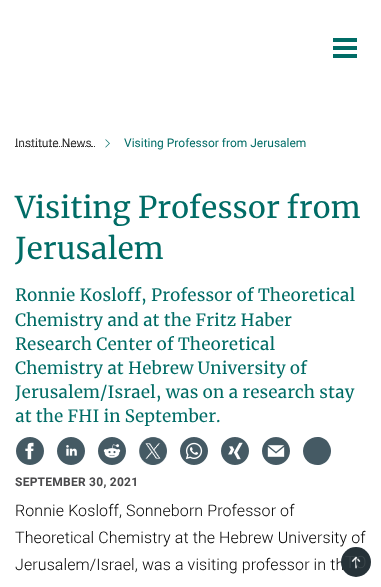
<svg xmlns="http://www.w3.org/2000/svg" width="381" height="587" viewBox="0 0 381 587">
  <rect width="100%" height="100%" fill="#fff"/>
  <path d="M333 38h24v4H333z" fill="#006c66"/>
  <path d="M333 46h24v4H333z" fill="#006c66"/>
  <path d="M333 54h24v4H333z" fill="#006c66"/>
  <path d="M15 146.5H92" fill="none" stroke="#333" stroke-dasharray="1 1"/>
  <path d="M92 146.5H93M94 146.5H95" fill="none" stroke="#333"/>
  <image x="105" y="139" width="5" height="9" href="img/1.png"/>
  <image x="16" y="437" width="28" height="28" href="img/2.png"/>
  <image x="57" y="437" width="28" height="28" href="img/3.png"/>
  <image x="98" y="437" width="28" height="28" href="img/4.png"/>
  <image x="139" y="437" width="28" height="28" href="img/5.png"/>
  <image x="180" y="437" width="28" height="28" href="img/6.png"/>
  <image x="221" y="437" width="28" height="28" href="img/7.png"/>
  <image x="262" y="437" width="28" height="28" href="img/8.png"/>
  <path d="M331 451C331 454 330 456.5 328.5 459C321 470.5 303 464.5 303 451C303 437.5 321 431.5 328.5 443C330 445.5 331 448 331 451Z" fill="#455a64"/>
  <text x="15" y="147" font-family="Roboto" font-size="12" fill="#333">Institute News</text>
  <text x="124" y="147" font-family="Roboto" font-size="12" fill="#006c66">Visiting Professor from Jerusalem</text>
  <g font-family="Merriweather" font-size="30" fill="#006c66">
    <text x="15" y="218">Visiting Professor from</text>
    <text x="15" y="259">Jerusalem</text>
  </g>
  <g font-family="Merriweather" font-size="17" letter-spacing="0.1" fill="#006c66">
    <text x="15" y="301">Ronnie Kosloff, Professor of Theoretical</text>
    <text x="15" y="326">Chemistry and at the Fritz Haber</text>
    <text x="15" y="350">Research Center of Theoretical</text>
    <text x="15" y="374">Chemistry at Hebrew University of</text>
    <text x="15" y="398">Jerusalem/Israel, was on a research stay</text>
    <text x="15" y="422">at the FHI in September.</text>
  </g>
  <text x="15" y="486" font-family="Roboto" font-size="12" font-weight="bold" letter-spacing="0.25" fill="#49494b">SEPTEMBER 30, 2021</text>
  <g font-family="Roboto" font-size="16" font-weight="300" letter-spacing="0.1" fill="#000">
    <text x="15" y="516">Ronnie Kosloff, Sonneborn Professor of</text>
    <text x="15" y="543">Theoretical Chemistry at the Hebrew University of</text>
    <text x="15" y="570">Jerusalem/Israel, was a visiting professor in th</text>
  </g>
  <circle cx="356" cy="562" r="15" fill="#263238"/>
  <image x="351" y="556" width="10" height="13" href="img/9.png"/>
  <text x="345" y="568" font-family="Roboto" font-size="17" font-weight="300" fill="#3a454a">TO</text>
</svg>
